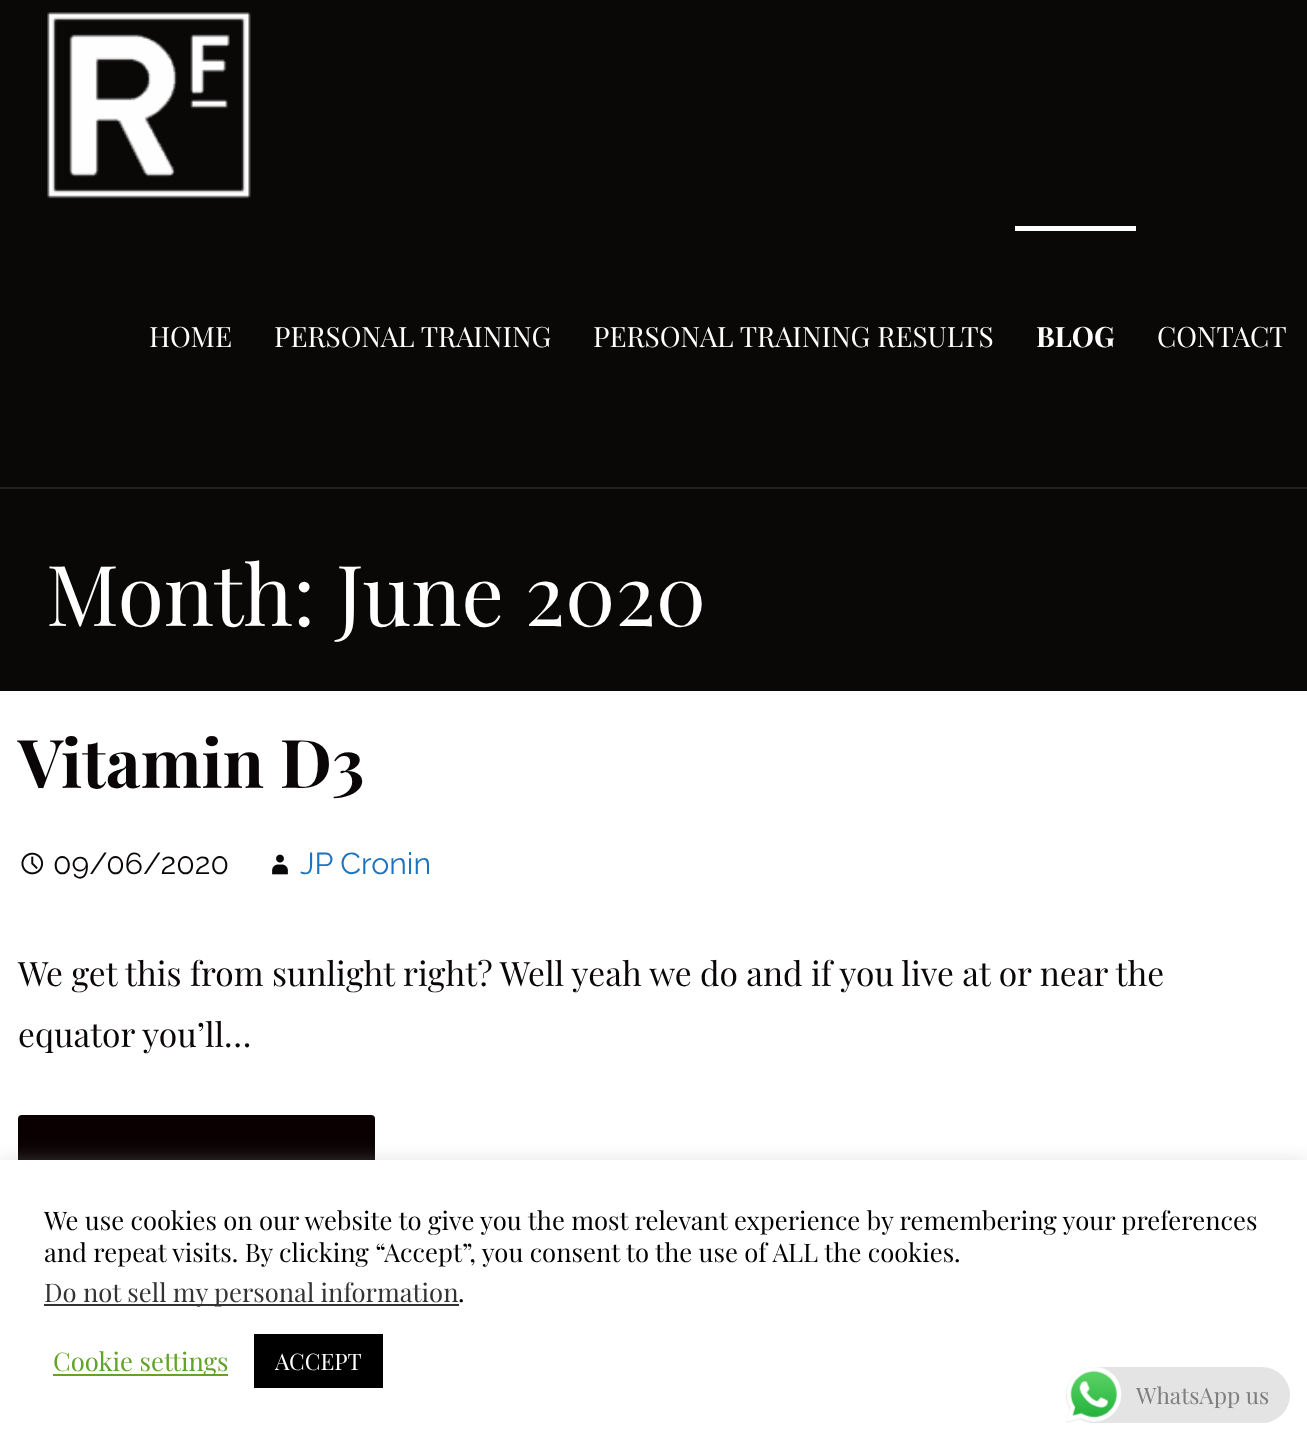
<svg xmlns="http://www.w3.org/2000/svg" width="1307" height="1440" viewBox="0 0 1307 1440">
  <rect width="100%" height="100%" fill="#fff"/>
  <path d="M0 0h1307v691H0z" fill="#0a0707"/>
  <path d="M0 487h1307v2H0z" fill="#232020"/>
  <image x="47" y="12" width="204" height="187" href="img/1.png"/>
  <path d="M1015 226h121v5H1015z" fill="#fff"/>
  <image x="21" y="852" width="23" height="23" href="img/2.png"/>
  <image x="272" y="854" width="16" height="21" href="img/3.png"/>
  <rect x="18" y="1115" width="357" height="86" rx="4" fill="#0a0002"/>
  <path d="M0 1159h1307v280H0z" fill="#acabab4d" filter="blur(9px)"/>
  <path d="M0 1160h1307v280H0z" fill="#fff"/>
  <path d="M44 1304h415v2H44z" fill="#333"/>
  <path d="M53 1374h175v2H53z" fill="#62a329"/>
  <path d="M254 1334h129v54H254z" fill="#000"/>
  <rect x="1066" y="1367" width="224" height="56" rx="28" fill="#e4e4e4"/>
  <image x="1065" y="1367" width="57" height="56" href="img/4.png"/>
  <g font-family="Playfair Display" font-size="28" fill="#fff">
    <text x="149" y="347">HOME</text>
    <text x="274" y="347">PERSONAL TRAINING</text>
    <text x="593" y="347">PERSONAL TRAINING RESULTS</text>
  </g>
  <text x="1036" y="347" font-family="Playfair Display" font-size="28" font-weight="bold" fill="#fff">BLOG</text>
  <text x="1157" y="347" font-family="Playfair Display" font-size="28" fill="#fff">CONTACT</text>
  <text x="46" y="626" font-family="Playfair Display" font-size="84" fill="#fff">Month: June 2020</text>
  <text x="18" y="788" font-family="Playfair Display" font-size="67.25" font-weight="bold" fill="#0a0607">Vitamin D3</text>
  <text x="53" y="874" font-family="Raleway" font-size="30.25" fill="#0a0607">09/06/2020</text>
  <text x="300" y="874" font-family="Raleway" font-size="30.25" fill="#1e73be">JP Cronin</text>
  <g font-family="Playfair Display" font-size="33.6" fill="#0a0607">
    <text x="18" y="986">We get this from sunlight right? Well yeah we do and if you live at or near the</text>
    <text x="18" y="1047">equator you’ll…</text>
  </g>
  <g font-family="Playfair Display" font-size="25.65" fill="#000">
    <text x="44" y="1230">We use cookies on our website to give you the most relevant experience by remembering your preferences</text>
    <text x="44" y="1262">and repeat visits. By clicking “Accept”, you consent to the use of ALL the cookies.</text>
  </g>
  <text x="44" y="1302" font-family="Playfair Display" font-size="25.65" fill="#333">Do not sell my personal information</text>
  <text x="458" y="1302" font-family="Playfair Display" font-size="25.65" fill="#000">.</text>
  <text x="53" y="1371" font-family="Playfair Display" font-size="25.65" fill="#62a329">Cookie settings</text>
  <text x="275" y="1370" font-family="Playfair Display" font-size="22.75" fill="#fff">ACCEPT</text>
  <text x="1136" y="1404" font-family="Playfair Display" font-size="22.75" fill="#7f7d7d">WhatsApp us</text>
</svg>
